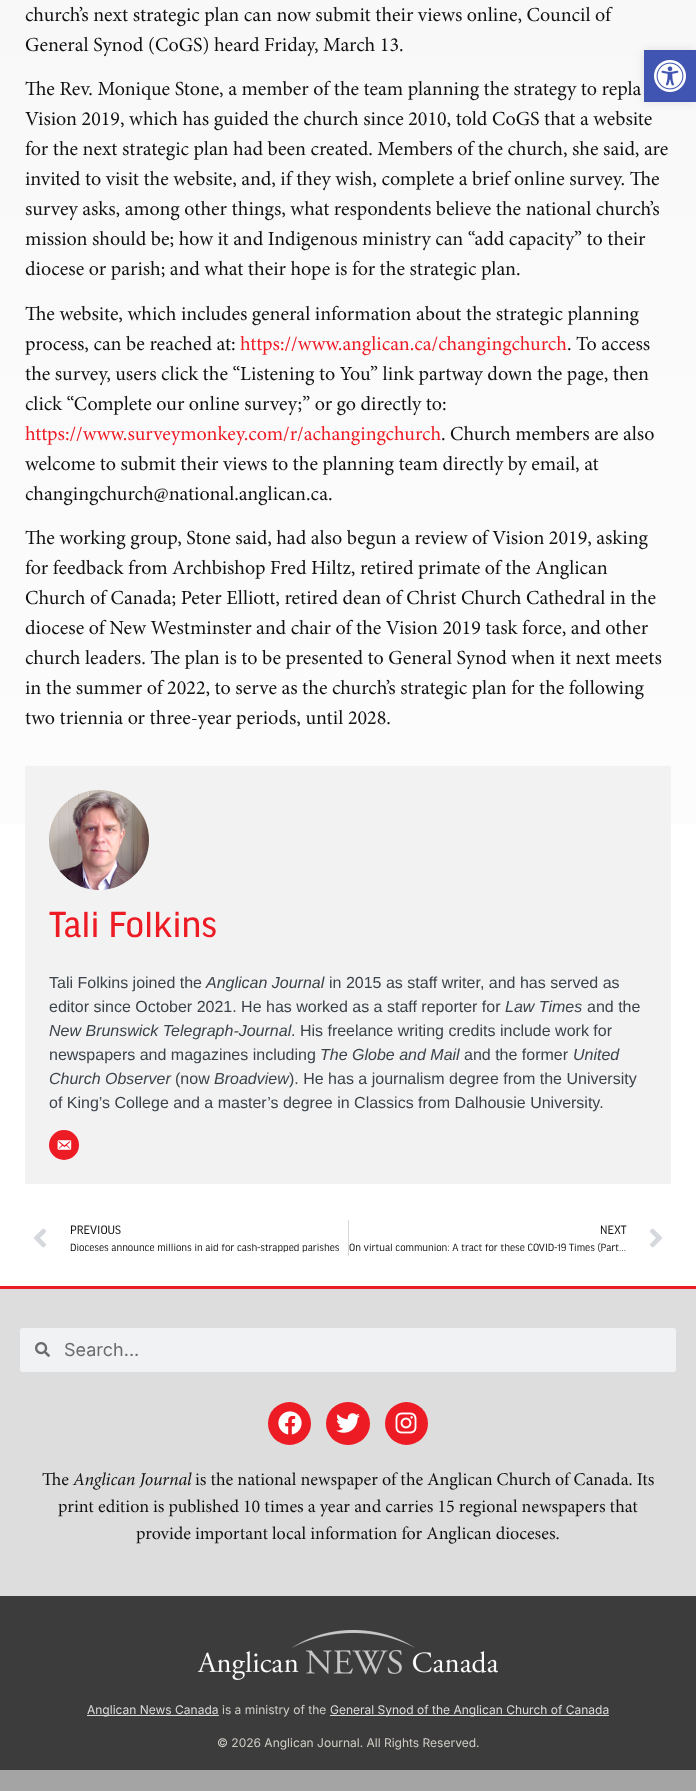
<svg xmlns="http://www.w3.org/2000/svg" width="696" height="1791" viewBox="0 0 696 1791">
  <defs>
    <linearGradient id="g1" gradientUnits="userSpaceOnUse" x1="348" y1="-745" x2="348" y2="1286"><stop offset="0" stop-color="#f4f4f4"/><stop offset="1" stop-color="#fff"/></linearGradient>
  </defs>
  <rect width="100%" height="100%" fill="#fff"/>
  <path d="M0 0h696v824H0z" fill="url(#g1)"/>
  <path d="M25 766h646v418H25z" fill="#f2f2f2"/>
  <image x="49" y="790" width="100" height="100" href="img/1.png"/>
  <circle cx="64" cy="1145" r="15" fill="#ed1b24"/>
  <image x="57" y="1140" width="15" height="10" href="img/2.png"/>
  <image x="34" y="1228" width="12" height="20" href="img/3.png"/>
  <path d="M348 1220h1v36H348z" fill="#d5d8dc"/>
  <image x="650" y="1228" width="12" height="20" href="img/4.png"/>
  <path d="M644 50h52v52H644z" fill="#0000001a" filter="blur(5px)"/>
  <path d="M644 50h52v52H644z" fill="#4054b2"/>
  <image x="654" y="60" width="32" height="32" href="img/5.png"/>
  <path d="M0 1289h696v307H0z" fill="#ddd"/>
  <path d="M0 1286h696v3H0z" fill="#ed1b24"/>
  <rect x="20" y="1328" width="656" height="44" rx="3" fill="#f1f2f3"/>
  <image x="35" y="1342" width="15" height="15" href="img/6.png"/>
  <circle cx="289.5" cy="1423.5" r="21.5" fill="#ed1b24"/>
  <image x="278" y="1411" width="24" height="24" href="img/7.png"/>
  <rect x="326" y="1402" width="44" height="43" rx="21.5" fill="#ed1b24"/>
  <image x="336" y="1413" width="24" height="20" href="img/8.png"/>
  <circle cx="406.5" cy="1423.5" r="21.5" fill="#ed1b24"/>
  <image x="395" y="1412" width="22" height="22" href="img/9.png"/>
  <path d="M0 1596h696v174H0z" fill="#3c3c3c"/>
  <path d="M0 1770h696v21H0z" fill="#a4a4a4"/>
  <image x="198" y="1630" width="300" height="50" href="img/10.png"/>
  <path d="M87 1715h132v1H87z" fill="#dbdbdb"/>
  <path d="M330 1715h279v1H330z" fill="#dbdbdb"/>
  <g font-family="Minion" font-size="20" fill="#111">
    <text x="25" y="21">church’s next strategic plan can now submit their views online, Council of</text>
    <text x="25" y="51">General Synod (CoGS) heard Friday, March 13.</text>
    <text x="25" y="95">The Rev. Monique Stone, a member of the team planning the strategy to repla</text>
    <text x="25" y="125">Vision 2019, which has guided the church since 2010, told CoGS that a website</text>
    <text x="25" y="155">for the next strategic plan had been created. Members of the church, she said, are</text>
    <text x="25" y="185">invited to visit the website, and, if they wish, complete a brief online survey. The</text>
    <text x="25" y="215">survey asks, among other things, what respondents believe the national church’s</text>
    <text x="25" y="245">mission should be; how it and Indigenous ministry can “add capacity” to their</text>
    <text x="25" y="275">diocese or parish; and what their hope is for the strategic plan.</text>
    <text x="25" y="320">The website, which includes general information about the strategic planning</text>
    <text x="25" y="350">process, can be reached at:</text>
  </g>
  <text x="240" y="350" font-family="Minion" font-size="20" fill="#ed1b24">https://www.anglican.ca/changingchurch</text>
  <g font-family="Minion" font-size="20" fill="#111">
    <text x="567" y="350">. To access</text>
    <text x="25" y="380">the survey, users click the “Listening to You” link partway down the page, then</text>
    <text x="25" y="410">click “Complete our online survey;” or go directly to:</text>
  </g>
  <text x="25" y="440" font-family="Minion" font-size="20" fill="#ed1b24">https://www.surveymonkey.com/r/achangingchurch</text>
  <g font-family="Minion" font-size="20" fill="#111">
    <text x="441" y="440">. Church members are also</text>
    <text x="25" y="470">welcome to submit their views to the planning team directly by email, at</text>
    <text x="25" y="500">changingchurch@national.anglican.ca.</text>
    <text x="25" y="544">The working group, Stone said, had also begun a review of Vision 2019, asking</text>
    <text x="25" y="574">for feedback from Archbishop Fred Hiltz, retired primate of the Anglican</text>
    <text x="25" y="604">Church of Canada; Peter Elliott, retired dean of Christ Church Cathedral in the</text>
    <text x="25" y="634">diocese of New Westminster and chair of the Vision 2019 task force, and other</text>
    <text x="25" y="664">church leaders. The plan is to be presented to General Synod when it next meets</text>
    <text x="25" y="694">in the summer of 2022, to serve as the church’s strategic plan for the following</text>
    <text x="25" y="724">two triennia or three-year periods, until 2028.</text>
  </g>
  <text x="49" y="937" font-family="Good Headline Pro" font-size="38.5" font-weight="500" fill="#ed1b24">Tali Folkins</text>
  <text x="49" y="988" font-family="Liberation Sans" font-size="16" fill="#3c434a">Tali Folkins joined the</text>
  <text x="206" y="988" font-family="Liberation Sans" font-size="16" font-style="italic" fill="#3c434a">Anglican Journal</text>
  <g font-family="Liberation Sans" font-size="16" fill="#3c434a">
    <text x="329" y="988">in 2015 as staff writer, and has served as</text>
    <text x="49" y="1012">editor since October 2021. He has worked as a staff reporter for</text>
  </g>
  <text x="505" y="1012" font-family="Liberation Sans" font-size="16" font-style="italic" fill="#3c434a">Law Times</text>
  <text x="587" y="1012" font-family="Liberation Sans" font-size="16" fill="#3c434a">and the</text>
  <text x="49" y="1036" font-family="Liberation Sans" font-size="16" font-style="italic" fill="#3c434a">New Brunswick Telegraph-Journal</text>
  <g font-family="Liberation Sans" font-size="16" fill="#3c434a">
    <text x="291" y="1036">. His freelance writing credits include work for</text>
    <text x="49" y="1060">newspapers and magazines including</text>
  </g>
  <text x="320" y="1060" font-family="Liberation Sans" font-size="16" font-style="italic" fill="#3c434a">The Globe and Mail</text>
  <text x="464" y="1060" font-family="Liberation Sans" font-size="16" fill="#3c434a">and the former</text>
  <g font-family="Liberation Sans" font-size="16" font-style="italic" fill="#3c434a">
    <text x="573" y="1060">United</text>
    <text x="49" y="1084">Church Observer</text>
  </g>
  <text x="175" y="1084" font-family="Liberation Sans" font-size="16" fill="#3c434a">(now</text>
  <text x="214" y="1084" font-family="Liberation Sans" font-size="16" font-style="italic" fill="#3c434a">Broadview</text>
  <g font-family="Liberation Sans" font-size="16" fill="#3c434a">
    <text x="289" y="1084">). He has a journalism degree from the University</text>
    <text x="49" y="1108">of King’s College and a master’s degree in Classics from Dalhousie University.</text>
  </g>
  <text x="70" y="1234" font-family="Good Headline Pro" font-size="13" fill="#111">PREVIOUS</text>
  <text x="70" y="1251" font-family="Good Headline Pro" font-size="11.2" fill="#111">Dioceses announce millions in aid for cash-strapped parishes</text>
  <text x="600" y="1234" font-family="Good Headline Pro" font-size="13" fill="#111">NEXT</text>
  <text x="349" y="1251" font-family="Good Headline Pro" font-size="11.2" fill="#111">On virtual communion: A tract for these COVID-19 Times (Part…</text>
  <text x="64" y="1356" font-family="Inter" font-size="18" fill="#6b6b6b">Search...</text>
  <text x="42" y="1485" font-family="Minion" font-size="18" fill="#111">The</text>
  <text x="73" y="1485" font-family="Minion" font-size="18" font-style="italic" fill="#111">Anglican Journal</text>
  <g font-family="Minion" font-size="18" fill="#111">
    <text x="195" y="1485">is the national newspaper of the Anglican Church of Canada. Its</text>
    <text x="58" y="1512">print edition is published 10 times a year and carries 15 regional newspapers that</text>
    <text x="136" y="1539">provide important local information for Anglican dioceses.</text>
  </g>
  <text x="87" y="1714" font-family="Inter" font-size="12" fill="#dbdbdb">Anglican News Canada</text>
  <text x="222" y="1714" font-family="Inter" font-size="12" fill="#d1cec8">is a ministry of the</text>
  <text x="330" y="1714" font-family="Inter" font-size="12" fill="#dbdbdb">General Synod of the Anglican Church of Canada</text>
  <text x="217" y="1747" font-family="Inter" font-size="12" fill="#d1cec8">© 2026 Anglican Journal. All Rights Reserved.</text>
</svg>
